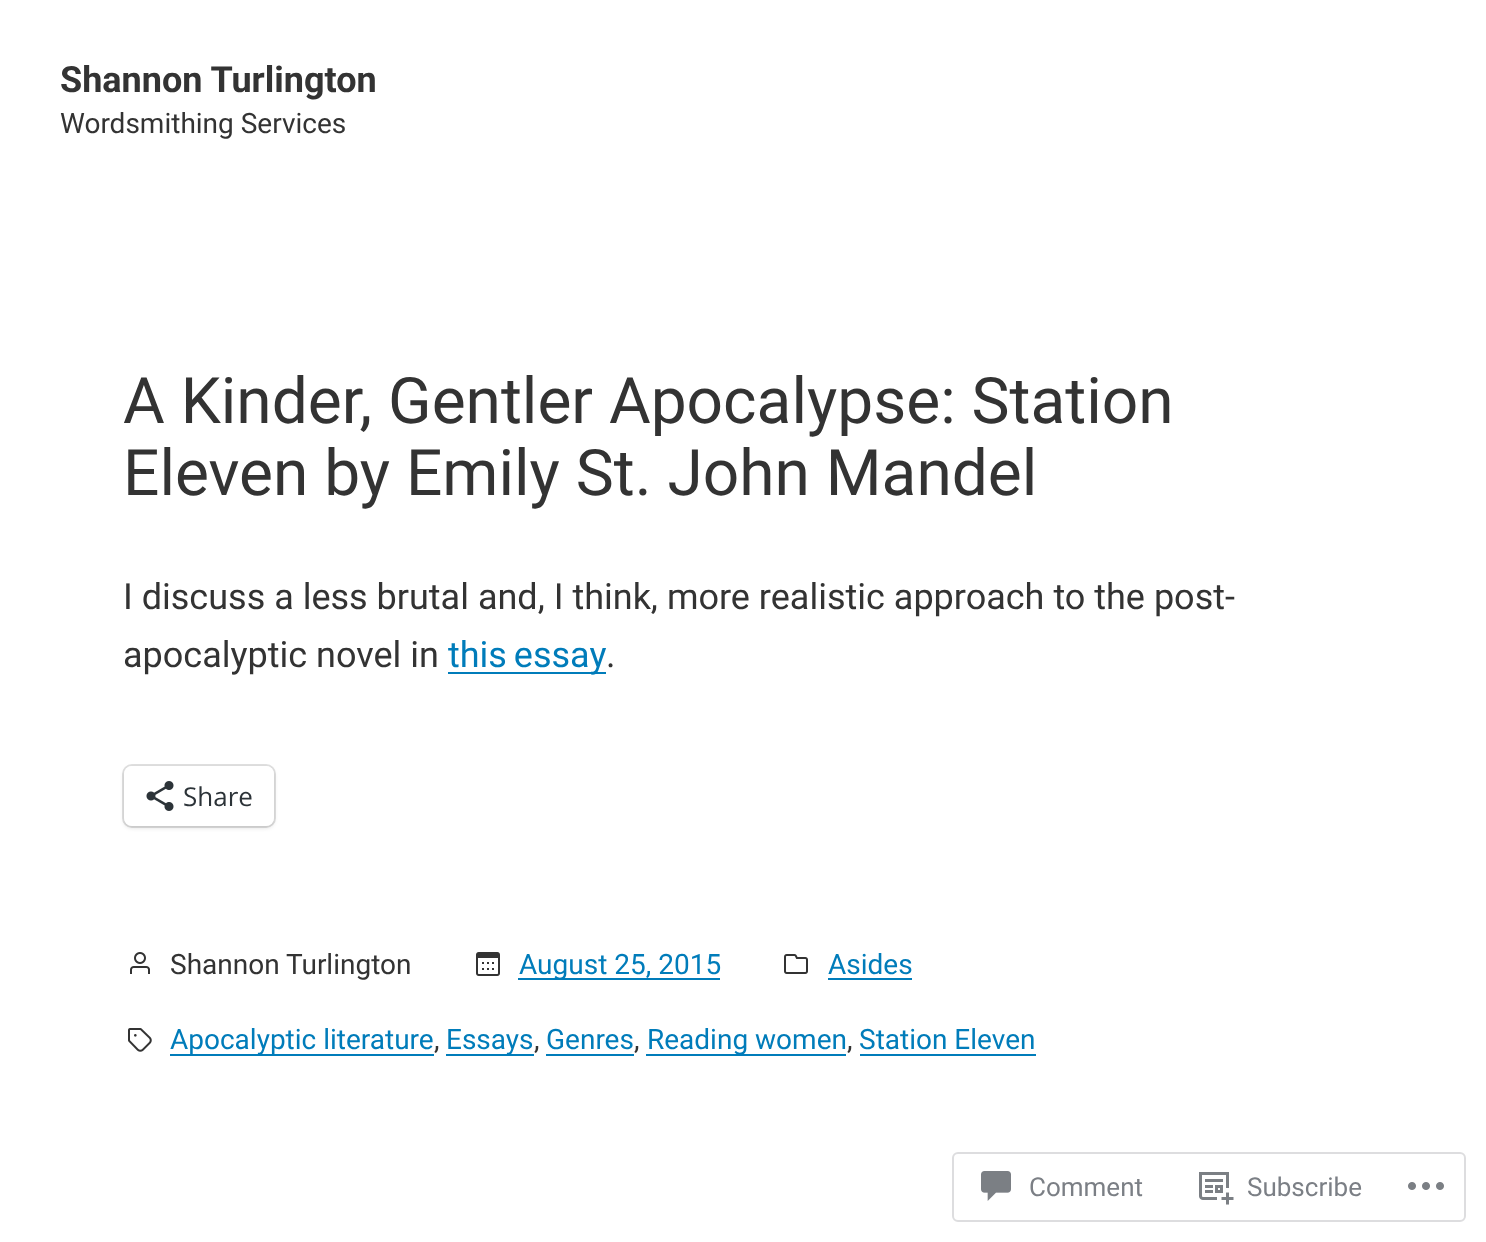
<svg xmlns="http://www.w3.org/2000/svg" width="1486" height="1242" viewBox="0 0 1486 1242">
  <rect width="100%" height="100%" fill="#fff"/>
  <path d="M448 672h158v2H448z" fill="#007cba"/>
  <rect x="123" y="765" width="152" height="62" rx="9" fill="none" stroke="#e0e0e0" stroke-width="2"/>
  <rect x="124" y="768" width="150" height="60" rx="8" fill="#0000001f" filter="blur(2px)"/>
  <rect x="124" y="766" width="150" height="60" rx="8" fill="#fff"/>
  <image x="146" y="781" width="28" height="30" href="img/1.png"/>
  <image x="130" y="952" width="20" height="22" href="img/2.png"/>
  <image x="476" y="952" width="24" height="24" href="img/3.png"/>
  <path d="M518 978h202v2H518z" fill="#007cba"/>
  <image x="784" y="954" width="24" height="20" href="img/4.png"/>
  <path d="M828 978h84v2H828z" fill="#007cba"/>
  <image x="128" y="1028" width="24" height="24" href="img/5.png"/>
  <path d="M170 1054h264v2H170z" fill="#007cba"/>
  <path d="M446 1054h88v2H446z" fill="#007cba"/>
  <path d="M546 1054h88v2H546z" fill="#007cba"/>
  <path d="M646 1054h200v2H646z" fill="#007cba"/>
  <path d="M860 1054h176v2H860z" fill="#007cba"/>
  <rect x="953" y="1153" width="512" height="68" rx="5" fill="none" stroke="#dddddf" stroke-width="2"/>
  <image x="981" y="1171" width="30" height="30" href="img/6.png"/>
  <image x="1199" y="1172" width="35" height="33" href="img/7.png"/>
  <image x="1408" y="1182" width="36" height="8" href="img/8.png"/>
  <text x="60" y="92" font-family="Roboto" font-size="36" font-weight="bold" fill="#333">Shannon Turlington</text>
  <text x="60" y="133" font-family="Roboto" font-size="28" fill="#333">Wordsmithing Services</text>
  <g font-family="Roboto" font-size="64" fill="#333">
    <text x="123" y="423">A Kinder, Gentler Apocalypse: Station</text>
    <text x="123" y="495">Eleven by Emily St. John Mandel</text>
  </g>
  <g font-family="Roboto" font-size="36" fill="#333">
    <text x="123" y="609">I discuss a less brutal and, I think, more realistic approach to the post-</text>
    <text x="123" y="667">apocalyptic novel in</text>
  </g>
  <text x="448" y="667" word-spacing="-2" font-family="Roboto" font-size="36" fill="#007cba">this essay</text>
  <text x="606" y="667" font-family="Roboto" font-size="36" fill="#333">.</text>
  <text x="183" y="806" font-family="Open Sans" font-size="26" fill="#2c3338">Share</text>
  <text x="170" y="974" font-family="Roboto" font-size="28" fill="#333">Shannon Turlington</text>
  <g font-family="Roboto" font-size="28" fill="#007cba">
    <text x="519" y="974">August 25, 2015</text>
    <text x="828" y="974">Asides</text>
    <text x="170" y="1049">Apocalyptic literature</text>
  </g>
  <text x="434" y="1049" font-family="Roboto" font-size="28" fill="#333">,</text>
  <text x="446" y="1049" font-family="Roboto" font-size="28" fill="#007cba">Essays</text>
  <text x="534" y="1049" font-family="Roboto" font-size="28" fill="#333">,</text>
  <text x="546" y="1049" font-family="Roboto" font-size="28" fill="#007cba">Genres</text>
  <text x="634" y="1049" font-family="Roboto" font-size="28" fill="#333">,</text>
  <text x="647" y="1049" font-family="Roboto" font-size="28" fill="#007cba">Reading women</text>
  <text x="847" y="1049" font-family="Roboto" font-size="28" fill="#333">,</text>
  <text x="859" y="1049" font-family="Roboto" font-size="28" fill="#007cba">Station Eleven</text>
  <g font-family="Roboto" font-size="26" fill="#7b7f85">
    <text x="1029" y="1196">Comment</text>
    <text x="1247" y="1196">Subscribe</text>
  </g>
</svg>
